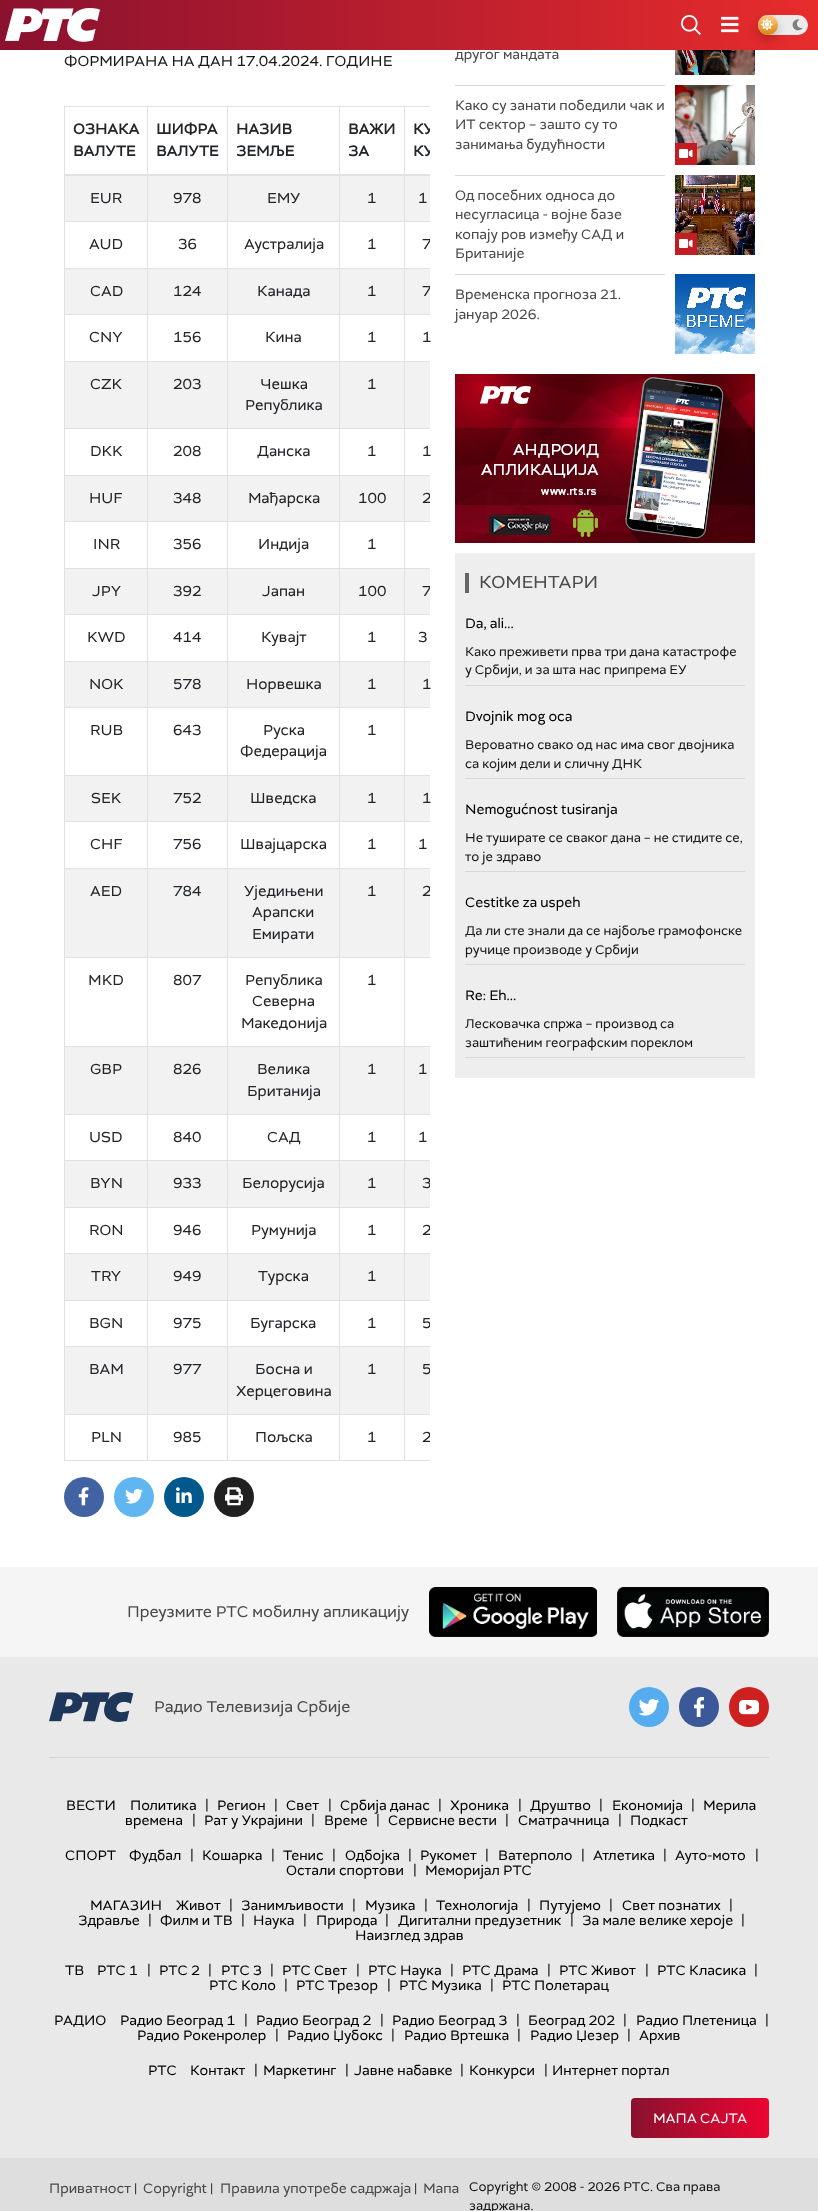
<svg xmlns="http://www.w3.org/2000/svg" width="818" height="2211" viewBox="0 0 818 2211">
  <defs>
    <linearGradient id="g1" gradientUnits="userSpaceOnUse" x1="0" y1="25" x2="818" y2="25"><stop offset="0" stop-color="#8a112f"/><stop offset="1" stop-color="#e82c2c"/></linearGradient>
    <linearGradient id="g2" gradientUnits="userSpaceOnUse" x1="768" y1="15" x2="768" y2="35"><stop offset="0" stop-color="#ffcc89"/><stop offset="1" stop-color="#d8860b"/></linearGradient>
    <linearGradient id="g3" gradientUnits="userSpaceOnUse" x1="631" y1="2118" x2="769" y2="2118"><stop offset="0" stop-color="#8a112f"/><stop offset="1" stop-color="#ed0531"/></linearGradient>
    <clipPath id="clip1"><path d="M64 106h366v1371H64z"/></clipPath>
  </defs>
  <rect width="100%" height="100%" fill="#fff"/>
  <path d="M0 0h818v50H0z" fill="url(#g1)"/>
  <image x="5" y="8" width="95" height="34" href="img/1.png"/>
  <image x="681" y="15" width="20" height="20" href="img/2.png"/>
  <image x="721" y="16" width="18" height="17" href="img/3.png"/>
  <rect x="758" y="15" width="50" height="20" rx="10" fill="#ebebeb"/>
  <image x="675" y="50" width="80" height="25" href="img/10.png"/>
  <rect x="758" y="20" width="20" height="20" rx="10" fill="#00000033" filter="blur(5px)"/>
  <circle cx="768" cy="25" r="10" fill="url(#g2)"/>
  <image x="761" y="18" width="12" height="13" href="img/4.png"/>
  <image x="792" y="19" width="11" height="12" href="img/5.png"/>
  <path d="M64 106h366v1H64z" fill="#dee2e6"/>
  <path d="M64 1460h366v1H64z" fill="#dee2e6"/>
  <path d="M64 106h1v1355H64z" fill="#dee2e6"/>
  <path d="M65 176h365v45H65z" fill="#f2f2f2"/>
  <path d="M404 221h26v1H404z" fill="#dee2e6"/>
  <path d="M404 268h26v1H404z" fill="#dee2e6"/>
  <path d="M65 269h365v45H65z" fill="#f2f2f2"/>
  <path d="M404 314h26v1H404z" fill="#dee2e6"/>
  <path d="M404 361h26v1H404z" fill="#dee2e6"/>
  <path d="M65 362h365v66H65z" fill="#f2f2f2"/>
  <path d="M404 428h26v1H404z" fill="#dee2e6"/>
  <path d="M404 475h26v1H404z" fill="#dee2e6"/>
  <path d="M65 476h365v45H65z" fill="#f2f2f2"/>
  <path d="M404 521h26v1H404z" fill="#dee2e6"/>
  <path d="M404 568h26v1H404z" fill="#dee2e6"/>
  <path d="M65 569h365v45H65z" fill="#f2f2f2"/>
  <path d="M404 614h26v1H404z" fill="#dee2e6"/>
  <path d="M404 661h26v1H404z" fill="#dee2e6"/>
  <path d="M65 662h365v45H65z" fill="#f2f2f2"/>
  <path d="M404 707h26v1H404z" fill="#dee2e6"/>
  <path d="M404 775h26v1H404z" fill="#dee2e6"/>
  <path d="M65 776h365v45H65z" fill="#f2f2f2"/>
  <path d="M404 821h26v1H404z" fill="#dee2e6"/>
  <path d="M404 868h26v1H404z" fill="#dee2e6"/>
  <path d="M65 869h365v88H65z" fill="#f2f2f2"/>
  <path d="M404 957h26v1H404z" fill="#dee2e6"/>
  <path d="M404 1046h26v1H404z" fill="#dee2e6"/>
  <path d="M65 1047h365v67H65z" fill="#f2f2f2"/>
  <path d="M404 1114h26v1H404z" fill="#dee2e6"/>
  <path d="M404 1160h26v1H404z" fill="#dee2e6"/>
  <path d="M65 1161h365v46H65z" fill="#f2f2f2"/>
  <path d="M404 1207h26v1H404z" fill="#dee2e6"/>
  <path d="M404 1253h26v1H404z" fill="#dee2e6"/>
  <path d="M65 1254h365v46H65z" fill="#f2f2f2"/>
  <path d="M404 1300h26v1H404z" fill="#dee2e6"/>
  <path d="M404 1346h26v1H404z" fill="#dee2e6"/>
  <path d="M65 1347h365v67H65z" fill="#f2f2f2"/>
  <path d="M404 1414h26v1H404z" fill="#dee2e6"/>
  <path d="M404 1414h1v47H404z" fill="#dee2e6"/>
  <path d="M339 1414h66v1H339z" fill="#dee2e6"/>
  <path d="M404 1346h1v69H404z" fill="#dee2e6"/>
  <path d="M339 1346h66v1H339z" fill="#dee2e6"/>
  <path d="M404 1300h1v47H404z" fill="#dee2e6"/>
  <path d="M339 1300h66v1H339z" fill="#dee2e6"/>
  <path d="M404 1253h1v48H404z" fill="#dee2e6"/>
  <path d="M339 1253h66v1H339z" fill="#dee2e6"/>
  <path d="M404 1207h1v47H404z" fill="#dee2e6"/>
  <path d="M339 1207h66v1H339z" fill="#dee2e6"/>
  <path d="M404 1160h1v48H404z" fill="#dee2e6"/>
  <path d="M339 1160h66v1H339z" fill="#dee2e6"/>
  <path d="M404 1114h1v47H404z" fill="#dee2e6"/>
  <path d="M339 1114h66v1H339z" fill="#dee2e6"/>
  <path d="M404 1046h1v69H404z" fill="#dee2e6"/>
  <path d="M339 1046h66v1H339z" fill="#dee2e6"/>
  <path d="M404 957h1v90H404z" fill="#dee2e6"/>
  <path d="M339 957h66v1H339z" fill="#dee2e6"/>
  <path d="M404 868h1v90H404z" fill="#dee2e6"/>
  <path d="M339 868h66v1H339z" fill="#dee2e6"/>
  <path d="M404 821h1v48H404z" fill="#dee2e6"/>
  <path d="M339 821h66v1H339z" fill="#dee2e6"/>
  <path d="M404 775h1v47H404z" fill="#dee2e6"/>
  <path d="M339 775h66v1H339z" fill="#dee2e6"/>
  <path d="M404 707h1v69H404z" fill="#dee2e6"/>
  <path d="M339 707h66v1H339z" fill="#dee2e6"/>
  <path d="M404 661h1v47H404z" fill="#dee2e6"/>
  <path d="M339 661h66v1H339z" fill="#dee2e6"/>
  <path d="M404 614h1v48H404z" fill="#dee2e6"/>
  <path d="M339 614h66v1H339z" fill="#dee2e6"/>
  <path d="M404 568h1v47H404z" fill="#dee2e6"/>
  <path d="M339 568h66v1H339z" fill="#dee2e6"/>
  <path d="M404 521h1v48H404z" fill="#dee2e6"/>
  <path d="M339 521h66v1H339z" fill="#dee2e6"/>
  <path d="M404 475h1v47H404z" fill="#dee2e6"/>
  <path d="M339 475h66v1H339z" fill="#dee2e6"/>
  <path d="M404 428h1v48H404z" fill="#dee2e6"/>
  <path d="M339 428h66v1H339z" fill="#dee2e6"/>
  <path d="M404 361h1v68H404z" fill="#dee2e6"/>
  <path d="M339 361h66v1H339z" fill="#dee2e6"/>
  <path d="M404 314h1v48H404z" fill="#dee2e6"/>
  <path d="M339 314h66v1H339z" fill="#dee2e6"/>
  <path d="M404 268h1v47H404z" fill="#dee2e6"/>
  <path d="M339 268h66v1H339z" fill="#dee2e6"/>
  <path d="M404 221h1v48H404z" fill="#dee2e6"/>
  <path d="M339 221h66v1H339z" fill="#dee2e6"/>
  <path d="M339 1414h1v47H339z" fill="#dee2e6"/>
  <path d="M227 1414h113v1H227z" fill="#dee2e6"/>
  <path d="M339 1346h1v69H339z" fill="#dee2e6"/>
  <path d="M227 1346h113v1H227z" fill="#dee2e6"/>
  <path d="M339 1300h1v47H339z" fill="#dee2e6"/>
  <path d="M227 1300h113v1H227z" fill="#dee2e6"/>
  <path d="M339 1253h1v48H339z" fill="#dee2e6"/>
  <path d="M227 1253h113v1H227z" fill="#dee2e6"/>
  <path d="M339 1207h1v47H339z" fill="#dee2e6"/>
  <path d="M227 1207h113v1H227z" fill="#dee2e6"/>
  <path d="M339 1160h1v48H339z" fill="#dee2e6"/>
  <path d="M227 1160h113v1H227z" fill="#dee2e6"/>
  <path d="M339 1114h1v47H339z" fill="#dee2e6"/>
  <path d="M227 1114h113v1H227z" fill="#dee2e6"/>
  <path d="M339 1046h1v69H339z" fill="#dee2e6"/>
  <path d="M227 1046h113v1H227z" fill="#dee2e6"/>
  <path d="M339 957h1v90H339z" fill="#dee2e6"/>
  <path d="M227 957h113v1H227z" fill="#dee2e6"/>
  <path d="M339 868h1v90H339z" fill="#dee2e6"/>
  <path d="M227 868h113v1H227z" fill="#dee2e6"/>
  <path d="M339 821h1v48H339z" fill="#dee2e6"/>
  <path d="M227 821h113v1H227z" fill="#dee2e6"/>
  <path d="M339 775h1v47H339z" fill="#dee2e6"/>
  <path d="M227 775h113v1H227z" fill="#dee2e6"/>
  <path d="M339 707h1v69H339z" fill="#dee2e6"/>
  <path d="M227 707h113v1H227z" fill="#dee2e6"/>
  <path d="M339 661h1v47H339z" fill="#dee2e6"/>
  <path d="M227 661h113v1H227z" fill="#dee2e6"/>
  <path d="M339 614h1v48H339z" fill="#dee2e6"/>
  <path d="M227 614h113v1H227z" fill="#dee2e6"/>
  <path d="M339 568h1v47H339z" fill="#dee2e6"/>
  <path d="M227 568h113v1H227z" fill="#dee2e6"/>
  <path d="M339 521h1v48H339z" fill="#dee2e6"/>
  <path d="M227 521h113v1H227z" fill="#dee2e6"/>
  <path d="M339 475h1v47H339z" fill="#dee2e6"/>
  <path d="M227 475h113v1H227z" fill="#dee2e6"/>
  <path d="M339 428h1v48H339z" fill="#dee2e6"/>
  <path d="M227 428h113v1H227z" fill="#dee2e6"/>
  <path d="M339 361h1v68H339z" fill="#dee2e6"/>
  <path d="M227 361h113v1H227z" fill="#dee2e6"/>
  <path d="M339 314h1v48H339z" fill="#dee2e6"/>
  <path d="M227 314h113v1H227z" fill="#dee2e6"/>
  <path d="M339 268h1v47H339z" fill="#dee2e6"/>
  <path d="M227 268h113v1H227z" fill="#dee2e6"/>
  <path d="M339 221h1v48H339z" fill="#dee2e6"/>
  <path d="M227 221h113v1H227z" fill="#dee2e6"/>
  <path d="M227 1414h1v47H227z" fill="#dee2e6"/>
  <path d="M147 1414h81v1H147z" fill="#dee2e6"/>
  <path d="M227 1346h1v69H227z" fill="#dee2e6"/>
  <path d="M147 1346h81v1H147z" fill="#dee2e6"/>
  <path d="M227 1300h1v47H227z" fill="#dee2e6"/>
  <path d="M147 1300h81v1H147z" fill="#dee2e6"/>
  <path d="M227 1253h1v48H227z" fill="#dee2e6"/>
  <path d="M147 1253h81v1H147z" fill="#dee2e6"/>
  <path d="M227 1207h1v47H227z" fill="#dee2e6"/>
  <path d="M147 1207h81v1H147z" fill="#dee2e6"/>
  <path d="M227 1160h1v48H227z" fill="#dee2e6"/>
  <path d="M147 1160h81v1H147z" fill="#dee2e6"/>
  <path d="M227 1114h1v47H227z" fill="#dee2e6"/>
  <path d="M147 1114h81v1H147z" fill="#dee2e6"/>
  <path d="M227 1046h1v69H227z" fill="#dee2e6"/>
  <path d="M147 1046h81v1H147z" fill="#dee2e6"/>
  <path d="M227 957h1v90H227z" fill="#dee2e6"/>
  <path d="M147 957h81v1H147z" fill="#dee2e6"/>
  <path d="M227 868h1v90H227z" fill="#dee2e6"/>
  <path d="M147 868h81v1H147z" fill="#dee2e6"/>
  <path d="M227 821h1v48H227z" fill="#dee2e6"/>
  <path d="M147 821h81v1H147z" fill="#dee2e6"/>
  <path d="M227 775h1v47H227z" fill="#dee2e6"/>
  <path d="M147 775h81v1H147z" fill="#dee2e6"/>
  <path d="M227 707h1v69H227z" fill="#dee2e6"/>
  <path d="M147 707h81v1H147z" fill="#dee2e6"/>
  <path d="M227 661h1v47H227z" fill="#dee2e6"/>
  <path d="M147 661h81v1H147z" fill="#dee2e6"/>
  <path d="M227 614h1v48H227z" fill="#dee2e6"/>
  <path d="M147 614h81v1H147z" fill="#dee2e6"/>
  <path d="M227 568h1v47H227z" fill="#dee2e6"/>
  <path d="M147 568h81v1H147z" fill="#dee2e6"/>
  <path d="M227 521h1v48H227z" fill="#dee2e6"/>
  <path d="M147 521h81v1H147z" fill="#dee2e6"/>
  <path d="M227 475h1v47H227z" fill="#dee2e6"/>
  <path d="M147 475h81v1H147z" fill="#dee2e6"/>
  <path d="M227 428h1v48H227z" fill="#dee2e6"/>
  <path d="M147 428h81v1H147z" fill="#dee2e6"/>
  <path d="M227 361h1v68H227z" fill="#dee2e6"/>
  <path d="M147 361h81v1H147z" fill="#dee2e6"/>
  <path d="M227 314h1v48H227z" fill="#dee2e6"/>
  <path d="M147 314h81v1H147z" fill="#dee2e6"/>
  <path d="M227 268h1v47H227z" fill="#dee2e6"/>
  <path d="M147 268h81v1H147z" fill="#dee2e6"/>
  <path d="M227 221h1v48H227z" fill="#dee2e6"/>
  <path d="M147 221h81v1H147z" fill="#dee2e6"/>
  <path d="M147 1414h1v47H147z" fill="#dee2e6"/>
  <path d="M64 1414h84v1H64z" fill="#dee2e6"/>
  <path d="M147 1346h1v69H147z" fill="#dee2e6"/>
  <path d="M64 1346h84v1H64z" fill="#dee2e6"/>
  <path d="M147 1300h1v47H147z" fill="#dee2e6"/>
  <path d="M64 1300h84v1H64z" fill="#dee2e6"/>
  <path d="M147 1253h1v48H147z" fill="#dee2e6"/>
  <path d="M64 1253h84v1H64z" fill="#dee2e6"/>
  <path d="M147 1207h1v47H147z" fill="#dee2e6"/>
  <path d="M64 1207h84v1H64z" fill="#dee2e6"/>
  <path d="M147 1160h1v48H147z" fill="#dee2e6"/>
  <path d="M64 1160h84v1H64z" fill="#dee2e6"/>
  <path d="M147 1114h1v47H147z" fill="#dee2e6"/>
  <path d="M64 1114h84v1H64z" fill="#dee2e6"/>
  <path d="M147 1046h1v69H147z" fill="#dee2e6"/>
  <path d="M64 1046h84v1H64z" fill="#dee2e6"/>
  <path d="M147 957h1v90H147z" fill="#dee2e6"/>
  <path d="M64 957h84v1H64z" fill="#dee2e6"/>
  <path d="M147 868h1v90H147z" fill="#dee2e6"/>
  <path d="M64 868h84v1H64z" fill="#dee2e6"/>
  <path d="M147 821h1v48H147z" fill="#dee2e6"/>
  <path d="M64 821h84v1H64z" fill="#dee2e6"/>
  <path d="M147 775h1v47H147z" fill="#dee2e6"/>
  <path d="M64 775h84v1H64z" fill="#dee2e6"/>
  <path d="M147 707h1v69H147z" fill="#dee2e6"/>
  <path d="M64 707h84v1H64z" fill="#dee2e6"/>
  <path d="M147 661h1v47H147z" fill="#dee2e6"/>
  <path d="M64 661h84v1H64z" fill="#dee2e6"/>
  <path d="M147 614h1v48H147z" fill="#dee2e6"/>
  <path d="M64 614h84v1H64z" fill="#dee2e6"/>
  <path d="M147 568h1v47H147z" fill="#dee2e6"/>
  <path d="M64 568h84v1H64z" fill="#dee2e6"/>
  <path d="M147 521h1v48H147z" fill="#dee2e6"/>
  <path d="M64 521h84v1H64z" fill="#dee2e6"/>
  <path d="M147 475h1v47H147z" fill="#dee2e6"/>
  <path d="M64 475h84v1H64z" fill="#dee2e6"/>
  <path d="M147 428h1v48H147z" fill="#dee2e6"/>
  <path d="M64 428h84v1H64z" fill="#dee2e6"/>
  <path d="M147 361h1v68H147z" fill="#dee2e6"/>
  <path d="M64 361h84v1H64z" fill="#dee2e6"/>
  <path d="M147 314h1v48H147z" fill="#dee2e6"/>
  <path d="M64 314h84v1H64z" fill="#dee2e6"/>
  <path d="M147 268h1v47H147z" fill="#dee2e6"/>
  <path d="M64 268h84v1H64z" fill="#dee2e6"/>
  <path d="M147 221h1v48H147z" fill="#dee2e6"/>
  <path d="M64 221h84v1H64z" fill="#dee2e6"/>
  <path d="M147 106h1v116H147z" fill="#dee2e6"/>
  <path d="M227 106h1v116H227z" fill="#dee2e6"/>
  <path d="M339 106h1v116H339z" fill="#dee2e6"/>
  <path d="M404 106h1v116H404z" fill="#dee2e6"/>
  <path d="M64 174h366v2H64z" fill="#dee2e6"/>
  <circle cx="84" cy="1497" r="20" fill="#4263a3"/>
  <image x="78" y="1487" width="11" height="19" href="img/6.png"/>
  <circle cx="134" cy="1497" r="20" fill="#60b6f0"/>
  <image x="125" y="1488" width="18" height="16" href="img/7.png"/>
  <circle cx="184" cy="1497" r="20" fill="#01588b"/>
  <image x="176" y="1487" width="16" height="16" href="img/8.png"/>
  <circle cx="234" cy="1497" r="20" fill="#202020"/>
  <image x="225" y="1487" width="18" height="19" href="img/9.png"/>
  <path d="M455 85h210v1H455z" fill="#d8d8d8"/>
  <image x="675" y="85" width="80" height="80" href="img/11.png"/>
  <path d="M675 143h22v22H675z" fill="#c31d24"/>
  <image x="679" y="149" width="14" height="9" href="img/12.png"/>
  <path d="M455 175h210v1H455z" fill="#d8d8d8"/>
  <image x="675" y="175" width="80" height="80" href="img/13.png"/>
  <path d="M675 233h22v22H675z" fill="#c31d24"/>
  <image x="679" y="239" width="14" height="9" href="img/12.png"/>
  <path d="M455 274h210v1H455z" fill="#d8d8d8"/>
  <image x="675" y="274" width="80" height="80" href="img/14.png"/>
  <image x="455" y="374" width="300" height="169" href="img/15.png"/>
  <path d="M455 553h300v525H455z" fill="#eee"/>
  <path d="M465 573h4v20H465z" fill="#666"/>
  <path d="M465 685h280v1H465z" fill="#d8d8d8"/>
  <path d="M465 778h280v1H465z" fill="#d8d8d8"/>
  <path d="M465 871h280v1H465z" fill="#d8d8d8"/>
  <path d="M465 964h280v1H465z" fill="#d8d8d8"/>
  <path d="M465 1057h280v1H465z" fill="#d8d8d8"/>
  <path d="M0 1657h818v501H0z" fill="#e9e9e9"/>
  <path d="M0 1567h818v90H0z" fill="#f5f5f5"/>
  <image x="429" y="1587" width="168" height="50" href="img/16.png"/>
  <image x="617" y="1587" width="152" height="50" href="img/17.png"/>
  <path d="M49 1757h720v1H49z" fill="#d4d4d4"/>
  <image x="49" y="1692" width="85" height="30" href="img/18.png"/>
  <circle cx="649" cy="1707" r="20" fill="#55acee"/>
  <image x="639" y="1699" width="20" height="17" href="img/19.png"/>
  <circle cx="699" cy="1707" r="20" fill="#3b5999"/>
  <image x="694" y="1697" width="10" height="20" href="img/20.png"/>
  <circle cx="749" cy="1707" r="20" fill="#cd201f"/>
  <image x="739" y="1700" width="20" height="15" href="img/21.png"/>
  <rect x="631" y="2098" width="138" height="40" rx="4" fill="url(#g3)"/>
  <path d="M0 2158h818v53H0z" fill="#dedede"/>
  <text x="64" y="66" font-family="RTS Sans" font-size="15" fill="#191919">ФОРМИРАНА НА ДАН 17.04.2024. ГОДИНЕ</text>
  <g font-family="RTS Sans" font-size="15" font-weight="bold" fill="#212529">
    <text x="73" y="134">ОЗНАКА</text>
    <text x="73" y="156">ВАЛУТЕ</text>
    <text x="156" y="134">ШИФРА</text>
    <text x="156" y="156">ВАЛУТЕ</text>
    <text x="236" y="134">НАЗИВ</text>
    <text x="236" y="156">ЗЕМЉЕ</text>
    <text x="348" y="134">ВАЖИ</text>
    <text x="348" y="156">ЗА</text>
  </g>
  <g clip-path="url(#clip1)">
    <g font-family="RTS Sans" font-size="15" font-weight="bold" fill="#212529">
      <text x="413" y="134">КУ</text>
      <text x="413" y="156">КУ</text>
    </g>
  </g>
  <g font-family="RTS Sans" font-size="15" fill="#212529">
    <text x="90" y="203">EUR</text>
    <text x="173" y="203">978</text>
    <text x="267" y="203">ЕМУ</text>
    <text x="367" y="203">1</text>
    <text x="418" y="203">1</text>
    <text x="89" y="249">AUD</text>
    <text x="178" y="249">36</text>
    <text x="244" y="249">Аустралија</text>
    <text x="367" y="249">1</text>
  </g>
  <g clip-path="url(#clip1)">
    <text x="422" y="249" font-family="RTS Sans" font-size="15" fill="#212529">7</text>
  </g>
  <g font-family="RTS Sans" font-size="15" fill="#212529">
    <text x="90" y="296">CAD</text>
    <text x="173" y="296">124</text>
    <text x="257" y="296">Канада</text>
    <text x="367" y="296">1</text>
  </g>
  <g clip-path="url(#clip1)">
    <text x="422" y="296" font-family="RTS Sans" font-size="15" fill="#212529">7</text>
  </g>
  <g font-family="RTS Sans" font-size="15" fill="#212529">
    <text x="89" y="342">CNY</text>
    <text x="173" y="342">156</text>
    <text x="265" y="342">Кина</text>
    <text x="367" y="342">1</text>
    <text x="422" y="342">1</text>
    <text x="90" y="389">CZK</text>
    <text x="173" y="389">203</text>
    <text x="260" y="389">Чешка</text>
    <text x="245" y="410">Република</text>
    <text x="367" y="389">1</text>
    <text x="90" y="456">DKK</text>
    <text x="173" y="456">208</text>
    <text x="257" y="456">Данска</text>
    <text x="367" y="456">1</text>
    <text x="422" y="456">1</text>
    <text x="89" y="503">HUF</text>
    <text x="173" y="503">348</text>
    <text x="248" y="503">Мађарска</text>
    <text x="358" y="503">100</text>
  </g>
  <g clip-path="url(#clip1)">
    <text x="422" y="503" font-family="RTS Sans" font-size="15" fill="#212529">2</text>
  </g>
  <g font-family="RTS Sans" font-size="15" fill="#212529">
    <text x="93" y="549">INR</text>
    <text x="173" y="549">356</text>
    <text x="258" y="549">Индија</text>
    <text x="367" y="549">1</text>
    <text x="92" y="596">JPY</text>
    <text x="173" y="596">392</text>
    <text x="262" y="596">Јапан</text>
    <text x="358" y="596">100</text>
  </g>
  <g clip-path="url(#clip1)">
    <text x="422" y="596" font-family="RTS Sans" font-size="15" fill="#212529">7</text>
  </g>
  <g font-family="RTS Sans" font-size="15" fill="#212529">
    <text x="87" y="642">KWD</text>
    <text x="173" y="642">414</text>
    <text x="261" y="642">Кувајт</text>
    <text x="367" y="642">1</text>
    <text x="418" y="642">3</text>
    <text x="89" y="689">NOK</text>
    <text x="173" y="689">578</text>
    <text x="246" y="689">Норвешка</text>
    <text x="367" y="689">1</text>
    <text x="422" y="689">1</text>
    <text x="90" y="735">RUB</text>
    <text x="173" y="735">643</text>
    <text x="263" y="735">Руска</text>
    <text x="240" y="756">Федерација</text>
    <text x="367" y="735">1</text>
    <text x="91" y="803">SEK</text>
    <text x="173" y="803">752</text>
    <text x="250" y="803">Шведска</text>
    <text x="367" y="803">1</text>
    <text x="422" y="803">1</text>
    <text x="90" y="849">CHF</text>
    <text x="173" y="849">756</text>
    <text x="240" y="849">Швајцарска</text>
    <text x="367" y="849">1</text>
    <text x="418" y="849">1</text>
    <text x="90" y="896">AED</text>
    <text x="173" y="896">784</text>
    <text x="244" y="896">Уједињени</text>
    <text x="252" y="917">Арапски</text>
    <text x="252" y="939">Емирати</text>
    <text x="367" y="896">1</text>
  </g>
  <g clip-path="url(#clip1)">
    <text x="422" y="896" font-family="RTS Sans" font-size="15" fill="#212529">2</text>
  </g>
  <g font-family="RTS Sans" font-size="15" fill="#212529">
    <text x="88" y="985">MKD</text>
    <text x="173" y="985">807</text>
    <text x="245" y="985">Република</text>
    <text x="252" y="1006">Северна</text>
    <text x="241" y="1028">Македонија</text>
    <text x="367" y="985">1</text>
    <text x="90" y="1074">GBP</text>
    <text x="173" y="1074">826</text>
    <text x="257" y="1074">Велика</text>
    <text x="247" y="1096">Британија</text>
    <text x="367" y="1074">1</text>
    <text x="418" y="1074">1</text>
    <text x="89" y="1142">USD</text>
    <text x="173" y="1142">840</text>
    <text x="267" y="1142">САД</text>
    <text x="367" y="1142">1</text>
    <text x="418" y="1142">1</text>
    <text x="90" y="1188">BYN</text>
    <text x="173" y="1188">933</text>
    <text x="242" y="1188">Белорусија</text>
    <text x="367" y="1188">1</text>
  </g>
  <g clip-path="url(#clip1)">
    <text x="422" y="1188" font-family="RTS Sans" font-size="15" fill="#212529">3</text>
  </g>
  <g font-family="RTS Sans" font-size="15" fill="#212529">
    <text x="89" y="1235">RON</text>
    <text x="173" y="1235">946</text>
    <text x="251" y="1235">Румунија</text>
    <text x="367" y="1235">1</text>
  </g>
  <g clip-path="url(#clip1)">
    <text x="422" y="1235" font-family="RTS Sans" font-size="15" fill="#212529">2</text>
  </g>
  <g font-family="RTS Sans" font-size="15" fill="#212529">
    <text x="91" y="1281">TRY</text>
    <text x="173" y="1281">949</text>
    <text x="258" y="1281">Турска</text>
    <text x="367" y="1281">1</text>
    <text x="89" y="1328">BGN</text>
    <text x="173" y="1328">975</text>
    <text x="250" y="1328">Бугарска</text>
    <text x="367" y="1328">1</text>
  </g>
  <g clip-path="url(#clip1)">
    <text x="422" y="1328" font-family="RTS Sans" font-size="15" fill="#212529">5</text>
  </g>
  <g font-family="RTS Sans" font-size="15" fill="#212529">
    <text x="89" y="1374">BAM</text>
    <text x="173" y="1374">977</text>
    <text x="255" y="1374">Босна и</text>
    <text x="236" y="1396">Херцеговина</text>
    <text x="367" y="1374">1</text>
  </g>
  <g clip-path="url(#clip1)">
    <text x="422" y="1374" font-family="RTS Sans" font-size="15" fill="#212529">5</text>
  </g>
  <g font-family="RTS Sans" font-size="15" fill="#212529">
    <text x="91" y="1442">PLN</text>
    <text x="173" y="1442">985</text>
    <text x="255" y="1442">Пољска</text>
    <text x="367" y="1442">1</text>
  </g>
  <g clip-path="url(#clip1)">
    <text x="422" y="1442" font-family="RTS Sans" font-size="15" fill="#212529">2</text>
  </g>
  <g font-family="RTS Sans" font-size="14" fill="#4a4a4a">
    <text x="455" y="59">другог мандата</text>
    <text x="455" y="110">Како су занати победили чак и</text>
    <text x="455" y="129">ИТ сектор – зашто су то</text>
    <text x="455" y="149">занимања будућности</text>
    <text x="455" y="200">Од посебних односа до</text>
    <text x="455" y="219">несугласица - војне базе</text>
    <text x="455" y="239">копају ров између САД и</text>
    <text x="455" y="258">Британије</text>
    <text x="455" y="299">Временска прогноза 21.</text>
    <text x="455" y="319">јануар 2026.</text>
  </g>
  <text x="479" y="588" font-family="RTS Sans" font-size="18" fill="#4a4a4a">КОМЕНТАРИ</text>
  <text x="465" y="628" font-family="RTS Sans" font-size="14" fill="#000">Da, ali...</text>
  <g font-family="RTS Sans" font-size="13" fill="#191919">
    <text x="465" y="656">Како преживети прва три дана катастрофе</text>
    <text x="465" y="674">у Србији, и за шта нас припрема ЕУ</text>
  </g>
  <text x="465" y="721" font-family="RTS Sans" font-size="14" fill="#000">Dvojnik mog oca</text>
  <g font-family="RTS Sans" font-size="13" fill="#191919">
    <text x="465" y="749">Вероватно свако од нас има свог двојника</text>
    <text x="465" y="768">са којим дели и сличну ДНК</text>
  </g>
  <text x="465" y="814" font-family="RTS Sans" font-size="14" fill="#000">Nemogućnost tusiranja</text>
  <g font-family="RTS Sans" font-size="13" fill="#191919">
    <text x="465" y="842">Не туширате се сваког дана – не стидите се,</text>
    <text x="465" y="861">то је здраво</text>
  </g>
  <text x="465" y="907" font-family="RTS Sans" font-size="14" fill="#000">Cestitke za uspeh</text>
  <g font-family="RTS Sans" font-size="13" fill="#191919">
    <text x="465" y="935">Да ли сте знали да се најбоље грамофонске</text>
    <text x="465" y="954">ручице производе у Србији</text>
  </g>
  <text x="465" y="1000" font-family="RTS Sans" font-size="14" fill="#000">Re: Eh...</text>
  <g font-family="RTS Sans" font-size="13" fill="#191919">
    <text x="465" y="1028">Лесковачка спржа – производ са</text>
    <text x="465" y="1047">заштићеним географским пореклом</text>
  </g>
  <g font-family="RTS Sans" font-size="16" fill="#4a4a4a">
    <text x="127" y="1617">Преузмите РТС мобилну апликацију</text>
    <text x="154" y="1712">Радио Телевизија Србије</text>
  </g>
  <g font-family="RTS Sans" font-size="14" fill="#000">
    <text x="66" y="1810">ВЕСТИ</text>
    <text x="130" y="1810">Политика</text>
  </g>
  <text x="205" y="1810" font-family="RTS Sans" font-size="15" fill="#000">|</text>
  <text x="217" y="1810" font-family="RTS Sans" font-size="14" fill="#000">Регион</text>
  <text x="274" y="1810" font-family="RTS Sans" font-size="15" fill="#000">|</text>
  <text x="286" y="1810" font-family="RTS Sans" font-size="14" fill="#000">Свет</text>
  <text x="328" y="1810" font-family="RTS Sans" font-size="15" fill="#000">|</text>
  <text x="340" y="1810" font-family="RTS Sans" font-size="14" fill="#000">Србија данас</text>
  <text x="438" y="1810" font-family="RTS Sans" font-size="15" fill="#000">|</text>
  <text x="450" y="1810" font-family="RTS Sans" font-size="14" fill="#000">Хроника</text>
  <text x="518" y="1810" font-family="RTS Sans" font-size="15" fill="#000">|</text>
  <text x="530" y="1810" font-family="RTS Sans" font-size="14" fill="#000">Друштво</text>
  <text x="599" y="1810" font-family="RTS Sans" font-size="15" fill="#000">|</text>
  <text x="612" y="1810" font-family="RTS Sans" font-size="14" fill="#000">Економија</text>
  <text x="691" y="1810" font-family="RTS Sans" font-size="15" fill="#000">|</text>
  <g font-family="RTS Sans" font-size="14" fill="#000">
    <text x="703" y="1810">Мерила</text>
    <text x="125" y="1825">времена</text>
  </g>
  <text x="192" y="1825" font-family="RTS Sans" font-size="15" fill="#000">|</text>
  <text x="204" y="1825" font-family="RTS Sans" font-size="14" fill="#000">Рат у Украјини</text>
  <text x="311" y="1825" font-family="RTS Sans" font-size="15" fill="#000">|</text>
  <text x="324" y="1825" font-family="RTS Sans" font-size="14" fill="#000">Време</text>
  <text x="376" y="1825" font-family="RTS Sans" font-size="15" fill="#000">|</text>
  <text x="388" y="1825" font-family="RTS Sans" font-size="14" fill="#000">Сервисне вести</text>
  <text x="505" y="1825" font-family="RTS Sans" font-size="15" fill="#000">|</text>
  <text x="518" y="1825" font-family="RTS Sans" font-size="14" fill="#000">Сматрачница</text>
  <text x="618" y="1825" font-family="RTS Sans" font-size="15" fill="#000">|</text>
  <g font-family="RTS Sans" font-size="14" fill="#000">
    <text x="630" y="1825">Подкаст</text>
    <text x="65" y="1860">СПОРТ</text>
    <text x="129" y="1860">Фудбал</text>
  </g>
  <text x="190" y="1860" font-family="RTS Sans" font-size="15" fill="#000">|</text>
  <text x="202" y="1860" font-family="RTS Sans" font-size="14" fill="#000">Кошарка</text>
  <text x="271" y="1860" font-family="RTS Sans" font-size="15" fill="#000">|</text>
  <text x="283" y="1860" font-family="RTS Sans" font-size="14" fill="#000">Тенис</text>
  <text x="332" y="1860" font-family="RTS Sans" font-size="15" fill="#000">|</text>
  <text x="345" y="1860" font-family="RTS Sans" font-size="14" fill="#000">Одбојка</text>
  <text x="408" y="1860" font-family="RTS Sans" font-size="15" fill="#000">|</text>
  <text x="420" y="1860" font-family="RTS Sans" font-size="14" fill="#000">Рукомет</text>
  <text x="485" y="1860" font-family="RTS Sans" font-size="15" fill="#000">|</text>
  <text x="498" y="1860" font-family="RTS Sans" font-size="14" fill="#000">Ватерполо</text>
  <text x="581" y="1860" font-family="RTS Sans" font-size="15" fill="#000">|</text>
  <text x="593" y="1860" font-family="RTS Sans" font-size="14" fill="#000">Атлетика</text>
  <text x="663" y="1860" font-family="RTS Sans" font-size="15" fill="#000">|</text>
  <text x="675" y="1860" font-family="RTS Sans" font-size="14" fill="#000">Ауто-мото</text>
  <text x="755" y="1860" font-family="RTS Sans" font-size="15" fill="#000">|</text>
  <text x="286" y="1875" font-family="RTS Sans" font-size="14" fill="#000">Остали спортови</text>
  <text x="413" y="1875" font-family="RTS Sans" font-size="15" fill="#000">|</text>
  <g font-family="RTS Sans" font-size="14" fill="#000">
    <text x="425" y="1875">Меморијал РТС</text>
    <text x="90" y="1910">МАГАЗИН</text>
    <text x="176" y="1910">Живот</text>
  </g>
  <text x="229" y="1910" font-family="RTS Sans" font-size="15" fill="#000">|</text>
  <text x="241" y="1910" font-family="RTS Sans" font-size="14" fill="#000">Занимљивости</text>
  <text x="352" y="1910" font-family="RTS Sans" font-size="15" fill="#000">|</text>
  <text x="365" y="1910" font-family="RTS Sans" font-size="14" fill="#000">Музика</text>
  <text x="424" y="1910" font-family="RTS Sans" font-size="15" fill="#000">|</text>
  <text x="436" y="1910" font-family="RTS Sans" font-size="14" fill="#000">Технологијa</text>
  <text x="527" y="1910" font-family="RTS Sans" font-size="15" fill="#000">|</text>
  <text x="539" y="1910" font-family="RTS Sans" font-size="14" fill="#000">Путујемо</text>
  <text x="609" y="1910" font-family="RTS Sans" font-size="15" fill="#000">|</text>
  <text x="622" y="1910" font-family="RTS Sans" font-size="14" fill="#000">Свет познатих</text>
  <text x="729" y="1910" font-family="RTS Sans" font-size="15" fill="#000">|</text>
  <text x="78" y="1925" font-family="RTS Sans" font-size="14" fill="#000">Здравље</text>
  <text x="148" y="1925" font-family="RTS Sans" font-size="15" fill="#000">|</text>
  <text x="160" y="1925" font-family="RTS Sans" font-size="14" fill="#000">Филм и ТВ</text>
  <text x="241" y="1925" font-family="RTS Sans" font-size="15" fill="#000">|</text>
  <text x="253" y="1925" font-family="RTS Sans" font-size="14" fill="#000">Наука</text>
  <text x="303" y="1925" font-family="RTS Sans" font-size="15" fill="#000">|</text>
  <text x="316" y="1925" font-family="RTS Sans" font-size="14" fill="#000">Природа</text>
  <text x="385" y="1925" font-family="RTS Sans" font-size="15" fill="#000">|</text>
  <text x="398" y="1925" font-family="RTS Sans" font-size="14" fill="#000">Дигитални предузетник</text>
  <text x="570" y="1925" font-family="RTS Sans" font-size="15" fill="#000">|</text>
  <text x="582" y="1925" font-family="RTS Sans" font-size="14" fill="#000">За мале велике хероје</text>
  <text x="741" y="1925" font-family="RTS Sans" font-size="15" fill="#000">|</text>
  <g font-family="RTS Sans" font-size="14" fill="#000">
    <text x="355" y="1940">Наизглед здрав</text>
    <text x="65" y="1975">ТВ</text>
    <text x="97" y="1975">РТС 1</text>
  </g>
  <text x="147" y="1975" font-family="RTS Sans" font-size="15" fill="#000">|</text>
  <text x="159" y="1975" font-family="RTS Sans" font-size="14" fill="#000">РТС 2</text>
  <text x="208" y="1975" font-family="RTS Sans" font-size="15" fill="#000">|</text>
  <text x="221" y="1975" font-family="RTS Sans" font-size="14" fill="#000">РТС 3</text>
  <text x="270" y="1975" font-family="RTS Sans" font-size="15" fill="#000">|</text>
  <text x="282" y="1975" font-family="RTS Sans" font-size="14" fill="#000">РТС Свет</text>
  <text x="356" y="1975" font-family="RTS Sans" font-size="15" fill="#000">|</text>
  <text x="368" y="1975" font-family="RTS Sans" font-size="14" fill="#000">РТС Наука</text>
  <text x="450" y="1975" font-family="RTS Sans" font-size="15" fill="#000">|</text>
  <text x="462" y="1975" font-family="RTS Sans" font-size="14" fill="#000">РТС Драма</text>
  <text x="547" y="1975" font-family="RTS Sans" font-size="15" fill="#000">|</text>
  <text x="559" y="1975" font-family="RTS Sans" font-size="14" fill="#000">РТС Живот</text>
  <text x="645" y="1975" font-family="RTS Sans" font-size="15" fill="#000">|</text>
  <text x="657" y="1975" font-family="RTS Sans" font-size="14" fill="#000">РТС Класика</text>
  <text x="754" y="1975" font-family="RTS Sans" font-size="15" fill="#000">|</text>
  <text x="209" y="1990" font-family="RTS Sans" font-size="14" fill="#000">РТС Коло</text>
  <text x="284" y="1990" font-family="RTS Sans" font-size="15" fill="#000">|</text>
  <text x="296" y="1990" font-family="RTS Sans" font-size="14" fill="#000">РТС Трезор</text>
  <text x="387" y="1990" font-family="RTS Sans" font-size="15" fill="#000">|</text>
  <text x="399" y="1990" font-family="RTS Sans" font-size="14" fill="#000">РТС Музика</text>
  <text x="490" y="1990" font-family="RTS Sans" font-size="15" fill="#000">|</text>
  <g font-family="RTS Sans" font-size="14" fill="#000">
    <text x="502" y="1990">РТС Полетарац</text>
    <text x="54" y="2025">РАДИО</text>
    <text x="120" y="2025">Радио Београд 1</text>
  </g>
  <text x="244" y="2025" font-family="RTS Sans" font-size="15" fill="#000">|</text>
  <text x="256" y="2025" font-family="RTS Sans" font-size="14" fill="#000">Радио Београд 2</text>
  <text x="380" y="2025" font-family="RTS Sans" font-size="15" fill="#000">|</text>
  <text x="392" y="2025" font-family="RTS Sans" font-size="14" fill="#000">Радио Београд 3</text>
  <text x="516" y="2025" font-family="RTS Sans" font-size="15" fill="#000">|</text>
  <text x="528" y="2025" font-family="RTS Sans" font-size="14" fill="#000">Београд 202</text>
  <text x="623" y="2025" font-family="RTS Sans" font-size="15" fill="#000">|</text>
  <text x="636" y="2025" font-family="RTS Sans" font-size="14" fill="#000">Радио Плетеница</text>
  <text x="765" y="2025" font-family="RTS Sans" font-size="15" fill="#000">|</text>
  <text x="137" y="2040" font-family="RTS Sans" font-size="14" fill="#000">Радио Рокенролер</text>
  <text x="275" y="2040" font-family="RTS Sans" font-size="15" fill="#000">|</text>
  <text x="287" y="2040" font-family="RTS Sans" font-size="14" fill="#000">Радио Џубокс</text>
  <text x="391" y="2040" font-family="RTS Sans" font-size="15" fill="#000">|</text>
  <text x="404" y="2040" font-family="RTS Sans" font-size="14" fill="#000">Радио Вртешка</text>
  <text x="517" y="2040" font-family="RTS Sans" font-size="15" fill="#000">|</text>
  <text x="530" y="2040" font-family="RTS Sans" font-size="14" fill="#000">Радио Џезер</text>
  <text x="627" y="2040" font-family="RTS Sans" font-size="15" fill="#000">|</text>
  <g font-family="RTS Sans" font-size="14" fill="#000">
    <text x="639" y="2040">Архив</text>
    <text x="148" y="2075">РТС</text>
    <text x="190" y="2075">Контакт</text>
  </g>
  <text x="254" y="2075" font-family="RTS Sans" font-size="15" fill="#000">|</text>
  <text x="263" y="2075" font-family="RTS Sans" font-size="14" fill="#000">Маркетинг</text>
  <text x="345" y="2075" font-family="RTS Sans" font-size="15" fill="#000">|</text>
  <text x="354" y="2075" font-family="RTS Sans" font-size="14" fill="#000">Јавне набавке</text>
  <text x="460" y="2075" font-family="RTS Sans" font-size="15" fill="#000">|</text>
  <text x="469" y="2075" font-family="RTS Sans" font-size="14" fill="#000">Конкурси</text>
  <text x="544" y="2075" font-family="RTS Sans" font-size="15" fill="#000">|</text>
  <text x="552" y="2075" font-family="RTS Sans" font-size="14" fill="#000">Интернет портал</text>
  <text x="653" y="2123" font-family="RTS Sans" font-size="14" fill="#fff">МАПА САЈТА</text>
  <text x="49" y="2193" font-family="RTS Sans" font-size="14" fill="#4a4a4a">Приватност</text>
  <text x="134" y="2193" font-family="RTS Sans" font-size="13" fill="#191919">|</text>
  <text x="143" y="2193" font-family="RTS Sans" font-size="14" fill="#4a4a4a">Copyright</text>
  <text x="210" y="2193" font-family="RTS Sans" font-size="13" fill="#191919">|</text>
  <text x="220" y="2193" font-family="RTS Sans" font-size="14" fill="#4a4a4a">Правила употребе садржаја</text>
  <text x="414" y="2193" font-family="RTS Sans" font-size="13" fill="#191919">|</text>
  <text x="423" y="2193" font-family="RTS Sans" font-size="14" fill="#4a4a4a">Мапа</text>
  <g font-family="RTS Sans" font-size="13" fill="#191919">
    <text x="469" y="2191">Copyright © 2008 - 2026 РТС. Сва права</text>
    <text x="469" y="2210">задржана.</text>
  </g>
</svg>
